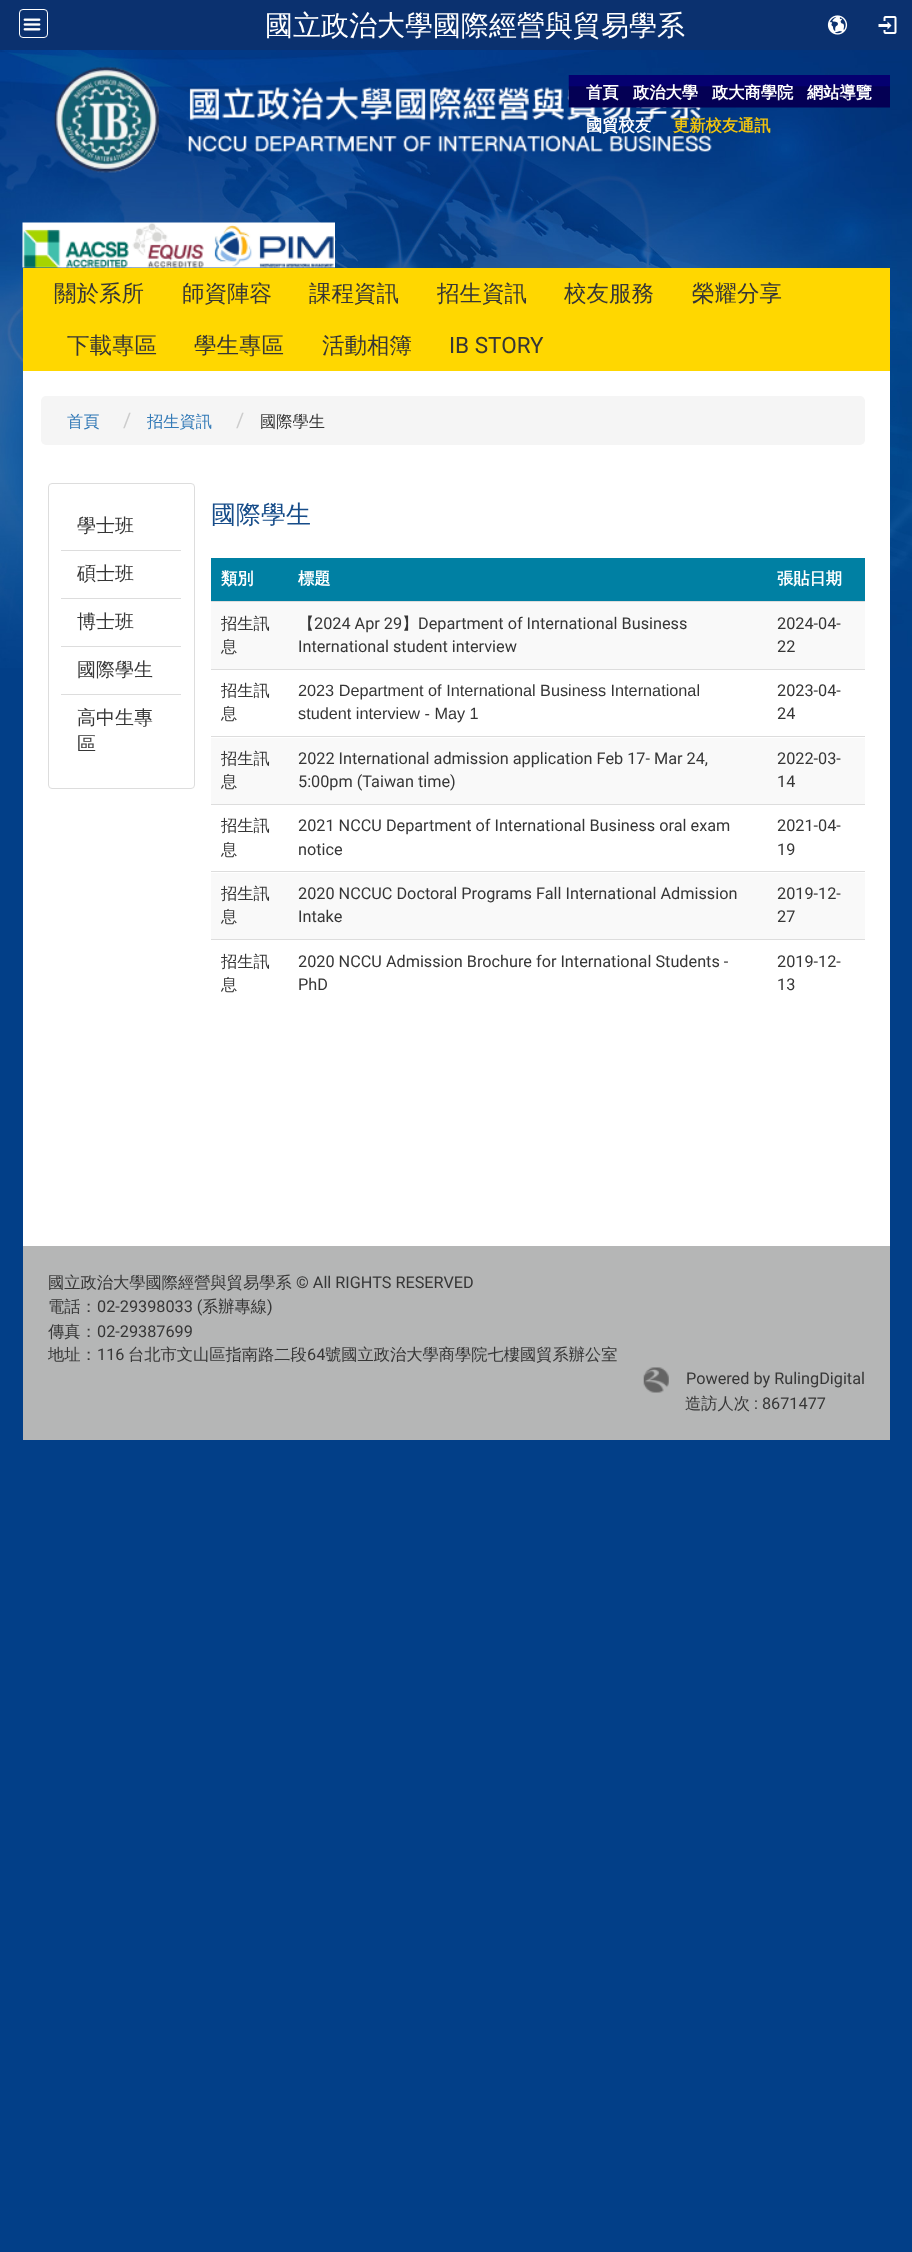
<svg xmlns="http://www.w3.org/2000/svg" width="912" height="2252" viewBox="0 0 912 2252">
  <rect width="100%" height="100%" fill="#023f88"/>
  <image x="0" y="50" width="912" height="618" href="img/1.png"/>
  <path d="M0 0h912v50H0z" fill="#0b316f"/>
  <rect x="19.5" y="9.5" width="28" height="28" rx="3.5" fill="none" stroke="#fff"/>
  <image x="23" y="18" width="18" height="13" href="img/2.png"/>
  <image x="827" y="15" width="21" height="20" href="img/3.png"/>
  <image x="878" y="16" width="19" height="18" href="img/4.png"/>
  <image x="53" y="66" width="659" height="107" href="img/5.png"/>
  <image x="568" y="75" width="322" height="33" href="img/6.png"/>
  <image x="22" y="222" width="313" height="46" href="img/7.png"/>
  <path d="M23 268h867v103H23z" fill="#ffd700"/>
  <path d="M23 371h867v875H23z" fill="#fff"/>
  <rect x="41" y="396" width="824" height="49" rx="5" fill="#f5f5f5"/>
  <rect x="48.5" y="483.5" width="146" height="305" rx="3.5" fill="none" stroke="#ddd"/>
  <path d="M61 550h120v1H61z" fill="#ddd"/>
  <path d="M61 598h120v1H61z" fill="#ddd"/>
  <path d="M61 646h120v1H61z" fill="#ddd"/>
  <path d="M61 694h120v1H61z" fill="#ddd"/>
  <path d="M211 558h654v43H211z" fill="#0080a3"/>
  <path d="M211 602h654v67H211z" fill="#f9f9f9"/>
  <path d="M211 601h654v1H211z" fill="#ddd"/>
  <path d="M211 669h654v1H211z" fill="#ddd"/>
  <path d="M211 738h654v66H211z" fill="#f9f9f9"/>
  <path d="M211 736h654v1H211z" fill="#ddd"/>
  <path d="M211 804h654v1H211z" fill="#ddd"/>
  <path d="M211 873h654v66H211z" fill="#f9f9f9"/>
  <path d="M211 871h654v1H211z" fill="#ddd"/>
  <path d="M211 939h654v1H211z" fill="#ddd"/>
  <path d="M23 1246h867v194H23z" fill="#b5b6b6"/>
  <image x="643" y="1367" width="26" height="26" href="img/8.png"/>
  <text x="265" y="35" font-family="WenQuanYi Zen Hei" font-size="28" font-weight="500" fill="#fff">國立政治大學國際經營與貿易學系</text>
  <g font-family="WenQuanYi Zen Hei" font-size="16.25" font-weight="bold" fill="#fff">
    <text x="586" y="98">首頁</text>
    <text x="633" y="98">政治大學</text>
    <text x="712" y="98">政大商學院</text>
    <text x="807" y="98">網站導覽</text>
    <text x="586" y="131">國貿校友</text>
  </g>
  <text x="673" y="131" font-family="WenQuanYi Zen Hei" font-size="16.25" font-weight="bold" fill="#f1c40f">更新校友通訊</text>
  <g font-family="WenQuanYi Zen Hei" font-size="22.5" font-weight="500" fill="#363636">
    <text x="54" y="301">關於系所</text>
    <text x="182" y="301">師資陣容</text>
    <text x="309" y="301">課程資訊</text>
    <text x="437" y="301">招生資訊</text>
    <text x="564" y="301">校友服務</text>
    <text x="692" y="301">榮耀分享</text>
    <text x="67" y="353">下載專區</text>
    <text x="194" y="353">學生專區</text>
    <text x="322" y="353">活動相簿</text>
  </g>
  <text x="449" y="353" font-family="Roboto" font-size="22.5" fill="#363636">IB STORY</text>
  <text x="67" y="427" font-family="WenQuanYi Zen Hei" font-size="16.25" font-weight="500" fill="#337ab7">首頁</text>
  <text x="123" y="427" font-family="Roboto" font-size="20" fill="#ccc">/</text>
  <text x="147" y="427" font-family="WenQuanYi Zen Hei" font-size="16.25" font-weight="500" fill="#337ab7">招生資訊</text>
  <text x="236" y="427" font-family="Roboto" font-size="20" fill="#ccc">/</text>
  <text x="260" y="427" font-family="WenQuanYi Zen Hei" font-size="16.25" font-weight="500" fill="#363636">國際學生</text>
  <g font-family="WenQuanYi Zen Hei" font-size="19" font-weight="500" fill="#363636">
    <text x="77" y="532">學士班</text>
    <text x="77" y="580">碩士班</text>
    <text x="77" y="628">博士班</text>
    <text x="77" y="676">國際學生</text>
    <text x="77" y="724">高中生專</text>
    <text x="77" y="750">區</text>
  </g>
  <text x="211" y="523" font-family="WenQuanYi Zen Hei" font-size="25" font-weight="500" fill="#164c89">國際學生</text>
  <g font-family="WenQuanYi Zen Hei" font-size="16.25" font-weight="bold" fill="#fff">
    <text x="221" y="584">類別</text>
    <text x="298" y="584">標題</text>
    <text x="777" y="584">張貼日期</text>
  </g>
  <g font-family="WenQuanYi Zen Hei" font-size="16.25" font-weight="500" fill="#363636">
    <text x="221" y="629">招生訊</text>
    <text x="221" y="652">息</text>
    <text x="298" y="629">【</text>
  </g>
  <text x="314" y="629" font-family="Roboto" font-size="16.25" fill="#363636">2024 Apr 29</text>
  <text x="402" y="629" font-family="WenQuanYi Zen Hei" font-size="16.25" font-weight="500" fill="#363636">】</text>
  <g font-family="Roboto" font-size="16.25" fill="#363636">
    <text x="418" y="629">Department of International Business</text>
    <text x="298" y="652">International student interview</text>
    <text x="777" y="629">2024-04-</text>
    <text x="777" y="652">22</text>
  </g>
  <g font-family="WenQuanYi Zen Hei" font-size="16.25" font-weight="500" fill="#363636">
    <text x="221" y="696">招生訊</text>
    <text x="221" y="719">息</text>
  </g>
  <g font-family="Liberation Sans" font-size="16.25" fill="#363636">
    <text x="298" y="696">2023 Department of International Business International</text>
    <text x="298" y="719">student interview - May 1</text>
  </g>
  <g font-family="Roboto" font-size="16.25" fill="#363636">
    <text x="777" y="696">2023-04-</text>
    <text x="777" y="719">24</text>
  </g>
  <g font-family="WenQuanYi Zen Hei" font-size="16.25" font-weight="500" fill="#363636">
    <text x="221" y="764">招生訊</text>
    <text x="221" y="787">息</text>
  </g>
  <g font-family="Roboto" font-size="16.25" fill="#363636">
    <text x="298" y="764">2022 International admission application Feb 17- Mar 24,</text>
    <text x="298" y="787">5:00pm (Taiwan time)</text>
    <text x="777" y="764">2022-03-</text>
    <text x="777" y="787">14</text>
  </g>
  <g font-family="WenQuanYi Zen Hei" font-size="16.25" font-weight="500" fill="#363636">
    <text x="221" y="831">招生訊</text>
    <text x="221" y="855">息</text>
  </g>
  <g font-family="Roboto" font-size="16.25" fill="#363636">
    <text x="298" y="831">2021 NCCU Department of International Business oral exam</text>
    <text x="298" y="855">notice</text>
    <text x="777" y="831">2021-04-</text>
    <text x="777" y="855">19</text>
  </g>
  <g font-family="WenQuanYi Zen Hei" font-size="16.25" font-weight="500" fill="#363636">
    <text x="221" y="899">招生訊</text>
    <text x="221" y="922">息</text>
  </g>
  <g font-family="Roboto" font-size="16.25" fill="#363636">
    <text x="298" y="899">2020 NCCUC Doctoral Programs Fall International Admission</text>
    <text x="298" y="922">Intake</text>
    <text x="777" y="899">2019-12-</text>
    <text x="777" y="922">27</text>
  </g>
  <g font-family="WenQuanYi Zen Hei" font-size="16.25" font-weight="500" fill="#363636">
    <text x="221" y="967">招生訊</text>
    <text x="221" y="990">息</text>
  </g>
  <g font-family="Roboto" font-size="16.25" fill="#363636">
    <text x="298" y="967">2020 NCCU Admission Brochure for International Students -</text>
    <text x="298" y="990">PhD</text>
    <text x="777" y="967">2019-12-</text>
    <text x="777" y="990">13</text>
  </g>
  <text x="48" y="1288" font-family="WenQuanYi Zen Hei" font-size="16.25" font-weight="500" fill="#363636">國立政治大學國際經營與貿易學系</text>
  <text x="296" y="1288" font-family="Roboto" font-size="16.25" fill="#363636">© All RIGHTS RESERVED</text>
  <text x="48" y="1312" font-family="WenQuanYi Zen Hei" font-size="16.25" font-weight="500" fill="#363636">電話：</text>
  <text x="97" y="1312" font-family="Roboto" font-size="16.25" fill="#363636">02-29398033 (</text>
  <text x="202" y="1312" font-family="WenQuanYi Zen Hei" font-size="16.25" font-weight="500" fill="#363636">系辦專線</text>
  <text x="267" y="1312" font-family="Roboto" font-size="16.25" fill="#363636">)</text>
  <text x="48" y="1337" font-family="WenQuanYi Zen Hei" font-size="16.25" font-weight="500" fill="#363636">傳真：</text>
  <text x="97" y="1337" font-family="Roboto" font-size="16.25" fill="#363636">02-29387699</text>
  <text x="48" y="1360" font-family="WenQuanYi Zen Hei" font-size="16.25" font-weight="500" fill="#363636">地址：</text>
  <text x="97" y="1360" font-family="Roboto" font-size="16.25" fill="#363636">116</text>
  <text x="128" y="1360" font-family="WenQuanYi Zen Hei" font-size="16.25" font-weight="500" fill="#363636">台北市文山區指南路二段</text>
  <text x="307" y="1360" font-family="Roboto" font-size="16.25" fill="#363636">64</text>
  <text x="325" y="1360" font-family="WenQuanYi Zen Hei" font-size="16.25" font-weight="500" fill="#363636">號國立政治大學商學院七樓國貿系辦公室</text>
  <text x="686" y="1384" font-family="Roboto" font-size="16.25" fill="#363636">Powered by RulingDigital</text>
  <text x="685" y="1409" font-family="WenQuanYi Zen Hei" font-size="16.25" font-weight="500" fill="#363636">造訪人次</text>
  <text x="754" y="1409" font-family="Roboto" font-size="16.25" fill="#363636">: 8671477</text>
</svg>
